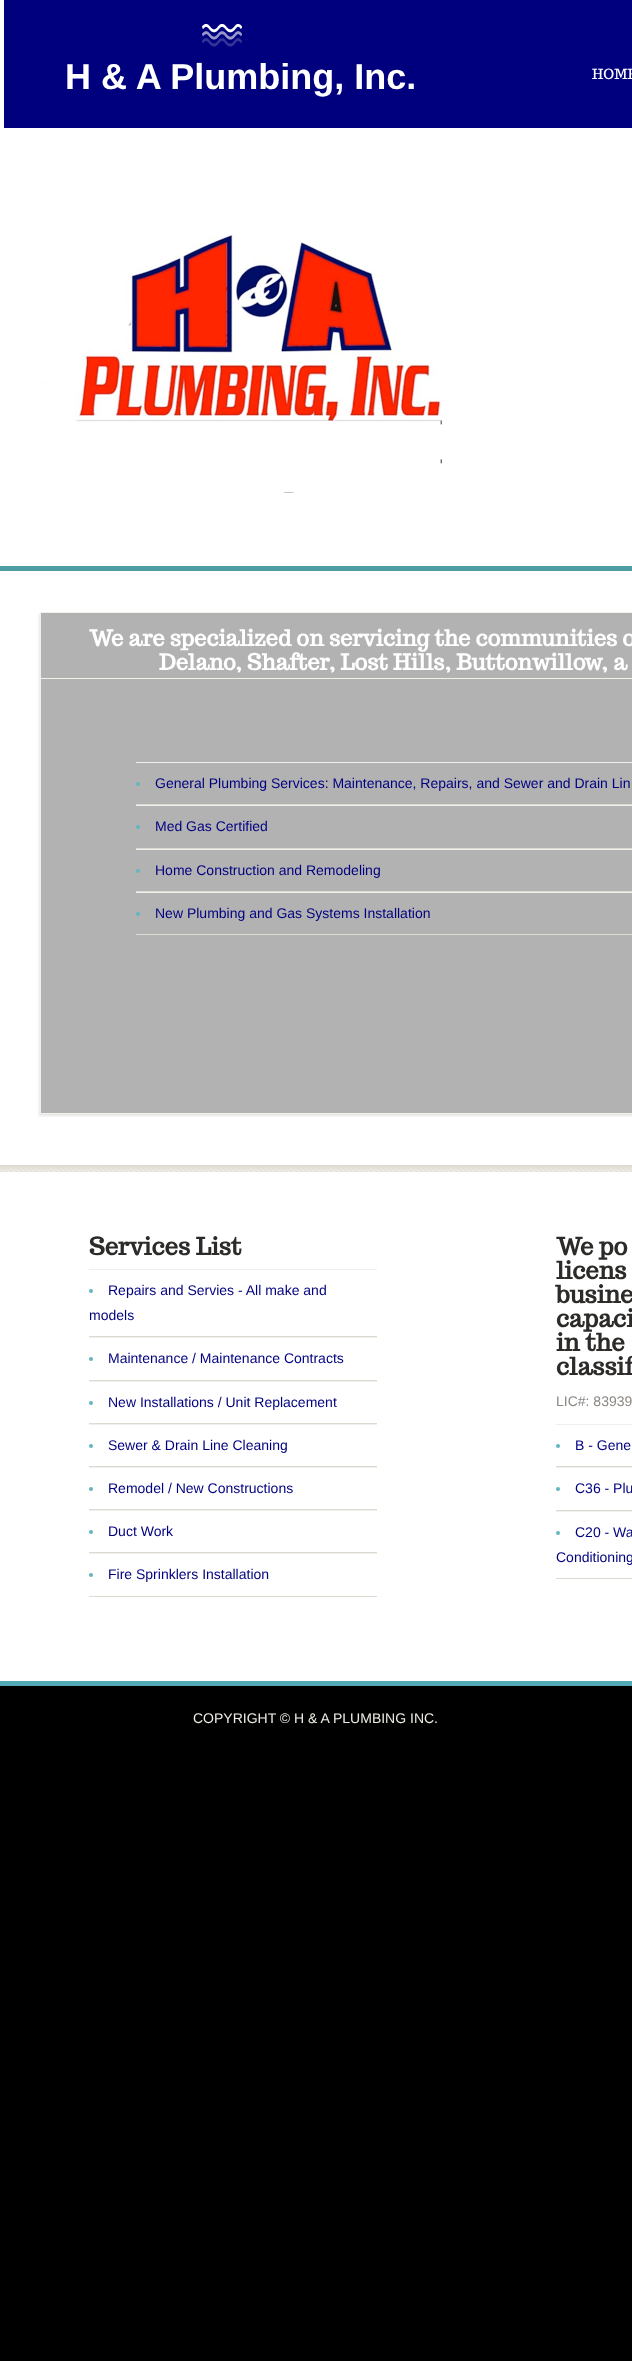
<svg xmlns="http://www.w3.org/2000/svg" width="632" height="2361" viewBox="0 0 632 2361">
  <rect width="100%" height="100%" fill="#000"/>
  <path d="M0 0h632v1681H0z" fill="#fff"/>
  <path d="M4 0h628v128H4z" fill="#00007f"/>
  <image x="202" y="24" width="40" height="23" href="img/1.png"/>
  <image x="42" y="234" width="400" height="259" href="img/2.png"/>
  <path d="M0 566h632v5H0z" fill="#4e9da5"/>
  <path d="M39 614h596v502H39z" fill="#0000001a" filter="blur(1px)"/>
  <path d="M40.5 612.5h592v501H40.5z" fill="#b2b2b2" stroke="#f1f0e9"/>
  <path d="M40 678h592v1H40z" fill="#f1f0e9"/>
  <path d="M136 762h496v1H136z" fill="#f1efec"/>
  <path d="M136 804h496v1H136z" fill="#dddad2"/>
  <circle cx="138" cy="784" r="2" fill="#62b6be"/>
  <path d="M136 805h496v1H136z" fill="#f1efec"/>
  <path d="M136 848h496v1H136z" fill="#dddad2"/>
  <circle cx="138" cy="827" r="2" fill="#62b6be"/>
  <path d="M136 849h496v1H136z" fill="#f1efec"/>
  <path d="M136 891h496v1H136z" fill="#dddad2"/>
  <circle cx="138" cy="871" r="2" fill="#62b6be"/>
  <path d="M136 892h496v1H136z" fill="#f1efec"/>
  <path d="M136 934h496v1H136z" fill="#dddad2"/>
  <circle cx="138" cy="914" r="2" fill="#62b6be"/>
  <image x="0" y="1165" width="632" height="7" href="img/3.png"/>
  <path d="M89 1269h288v1H89z" fill="#f1efec"/>
  <path d="M89 1336h288v1H89z" fill="#dddad2"/>
  <circle cx="91" cy="1291" r="2" fill="#62b6be"/>
  <path d="M89 1337h288v1H89z" fill="#f1efec"/>
  <path d="M89 1380h288v1H89z" fill="#dddad2"/>
  <circle cx="91" cy="1359" r="2" fill="#62b6be"/>
  <path d="M89 1381h288v1H89z" fill="#f1efec"/>
  <path d="M89 1423h288v1H89z" fill="#dddad2"/>
  <circle cx="91" cy="1403" r="2" fill="#62b6be"/>
  <path d="M89 1424h288v1H89z" fill="#f1efec"/>
  <path d="M89 1466h288v1H89z" fill="#dddad2"/>
  <circle cx="91" cy="1446" r="2" fill="#62b6be"/>
  <path d="M89 1467h288v1H89z" fill="#f1efec"/>
  <path d="M89 1509h288v1H89z" fill="#dddad2"/>
  <circle cx="91" cy="1489" r="2" fill="#62b6be"/>
  <path d="M89 1510h288v1H89z" fill="#f1efec"/>
  <path d="M89 1552h288v1H89z" fill="#dddad2"/>
  <circle cx="91" cy="1532" r="2" fill="#62b6be"/>
  <path d="M89 1553h288v1H89z" fill="#f1efec"/>
  <path d="M89 1596h288v1H89z" fill="#dddad2"/>
  <circle cx="91" cy="1575" r="2" fill="#62b6be"/>
  <path d="M556 1424h76v1H556z" fill="#f1efec"/>
  <path d="M556 1466h76v1H556z" fill="#dddad2"/>
  <circle cx="558" cy="1446" r="2" fill="#62b6be"/>
  <path d="M556 1467h76v1H556z" fill="#f1efec"/>
  <path d="M556 1510h76v1H556z" fill="#dddad2"/>
  <circle cx="558" cy="1489" r="2" fill="#62b6be"/>
  <path d="M556 1511h76v1H556z" fill="#f1efec"/>
  <path d="M556 1578h76v1H556z" fill="#dddad2"/>
  <circle cx="558" cy="1533" r="2" fill="#62b6be"/>
  <path d="M0 1681h632v5H0z" fill="#51aab4"/>
  <text x="65" y="89" font-family="Liberation Sans" font-size="36" font-weight="bold" fill="#fff">H &amp; A Plumbing, Inc.</text>
  <text x="592" y="79" font-family="Trocchi" font-size="14" fill="#fff">HOME</text>
  <g font-family="Trocchi" font-size="22" font-weight="bold" fill="#fff">
    <text x="89" y="646">We are specialized on servicing the communities o</text>
    <text x="159" y="670">Delano, Shafter, Lost Hills, Buttonwillow, a</text>
  </g>
  <g font-family="Liberation Sans" font-size="14" fill="#000080">
    <text x="155" y="788">General Plumbing Services: Maintenance, Repairs, and Sewer and Drain Lin</text>
    <text x="155" y="831">Med Gas Certified</text>
    <text x="155" y="875">Home Construction and Remodeling</text>
    <text x="155" y="918">New Plumbing and Gas Systems Installation</text>
  </g>
  <text x="89" y="1255" font-family="Trocchi" font-size="24" font-weight="bold" fill="#2c2b29">Services List</text>
  <g font-family="Liberation Sans" font-size="14" fill="#000080">
    <text x="108" y="1295">Repairs and Servies - All make and</text>
    <text x="89" y="1320">models</text>
    <text x="108" y="1363">Maintenance / Maintenance Contracts</text>
    <text x="108" y="1407">New Installations / Unit Replacement</text>
    <text x="108" y="1450">Sewer &amp; Drain Line Cleaning</text>
    <text x="108" y="1493">Remodel / New Constructions</text>
    <text x="108" y="1536">Duct Work</text>
    <text x="108" y="1579">Fire Sprinklers Installation</text>
  </g>
  <g font-family="Trocchi" font-size="24" font-weight="bold" fill="#2c2b29">
    <text x="556" y="1255">We po</text>
    <text x="556" y="1279">licens</text>
    <text x="556" y="1303">busine</text>
    <text x="556" y="1327">capaci</text>
    <text x="556" y="1351">in the</text>
    <text x="556" y="1375">classif</text>
  </g>
  <text x="556" y="1406" font-family="Liberation Sans" font-size="14" fill="#8a8782">LIC#: 83939</text>
  <g font-family="Liberation Sans" font-size="14" fill="#000080">
    <text x="575" y="1450">B - Gene</text>
    <text x="575" y="1493">C36 - Plu</text>
    <text x="575" y="1537">C20 - Wa</text>
    <text x="556" y="1562">Conditioning</text>
  </g>
  <text x="193" y="1723" font-family="Liberation Sans" font-size="14" fill="#eeece4">COPYRIGHT © H &amp; A PLUMBING INC.</text>
</svg>
